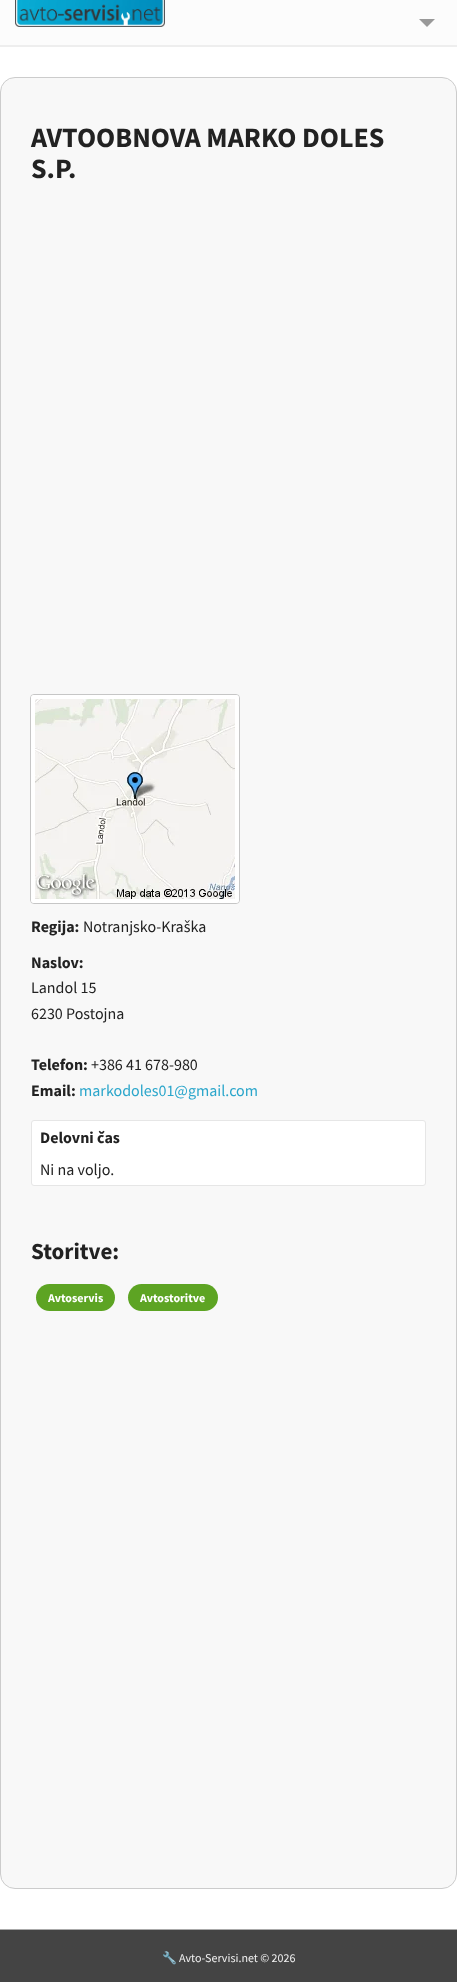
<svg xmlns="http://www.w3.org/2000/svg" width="457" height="1982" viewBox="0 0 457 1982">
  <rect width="100%" height="100%" fill="#fff"/>
  <path d="M0 0h457v45H0z" fill="#fcfcfc"/>
  <path d="M0 45h457v2H0z" fill="#eee"/>
  <image x="15" y="0" width="150" height="27" href="img/1.png"/>
  <path d="M419 19H435L427 27Z" fill="#999"/>
  <rect x="0.5" y="77.5" width="456" height="1811" rx="14.5" fill="#f8f8f8" stroke="#ccc"/>
  <rect x="30.5" y="694.5" width="209" height="209" rx="3.5" fill="none" stroke="#c6c6c6"/>
  <rect x="33" y="697" width="204" height="204" rx="1" fill="none" stroke="#fff" stroke-width="4"/>
  <image x="35" y="699" width="200" height="200" href="img/2.png"/>
  <rect x="31.5" y="1120.5" width="394" height="65" rx="2.5" fill="#fff" stroke="#e6e6e6"/>
  <rect x="36" y="1284" width="79" height="27" rx="13.5" fill="#5da423"/>
  <rect x="128" y="1284" width="90" height="27" rx="13.5" fill="#5da423"/>
  <path d="M0 1930h457v52H0z" fill="#444"/>
  <path d="M0 1929h457v1H0z" fill="#aaa"/>
  <g font-family="Source Sans Pro" font-size="28" font-weight="bold" fill="#222">
    <text x="31" y="147">AVTOOBNOVA MARKO DOLES</text>
    <text x="31" y="178">S.P.</text>
  </g>
  <text x="31" y="932" font-family="Source Sans Pro" font-size="16" font-weight="bold" fill="#222">Regija:</text>
  <text x="83" y="932" font-family="Source Sans Pro" font-size="16" fill="#222">Notranjsko-Kraška</text>
  <text x="31" y="968" font-family="Source Sans Pro" font-size="16" font-weight="bold" fill="#222">Naslov:</text>
  <g font-family="Source Sans Pro" font-size="16" fill="#222">
    <text x="31" y="993">Landol 15</text>
    <text x="31" y="1019">6230 Postojna</text>
  </g>
  <text x="31" y="1070" font-family="Source Sans Pro" font-size="16" font-weight="bold" fill="#222">Telefon:</text>
  <text x="91" y="1070" font-family="Source Sans Pro" font-size="16" fill="#222">+386 41 678-980</text>
  <text x="31" y="1096" font-family="Source Sans Pro" font-size="16" font-weight="bold" fill="#222">Email:</text>
  <text x="79" y="1096" font-family="Source Sans Pro" font-size="16" fill="#2ba6cb">markodoles01@gmail.com</text>
  <text x="40" y="1143" font-family="Source Sans Pro" font-size="16" font-weight="bold" fill="#222">Delovni čas</text>
  <text x="40" y="1175" font-family="Source Sans Pro" font-size="16" fill="#222">Ni na voljo.</text>
  <text x="31" y="1259" font-family="Source Sans Pro" font-size="23" font-weight="bold" fill="#222">Storitve:</text>
  <g font-family="Source Sans Pro" font-size="12" font-weight="bold" fill="#fff">
    <text x="48" y="1302">Avtoservis</text>
    <text x="140" y="1302">Avtostoritve</text>
  </g>
  <text x="162" y="1962" font-family="Noto Color Emoji" font-size="12" fill="#f1f1f1">🔧</text>
  <text x="179" y="1962" font-family="Source Sans Pro" font-size="12" fill="#f1f1f1">Avto-Servisi.net © 2026</text>
</svg>
